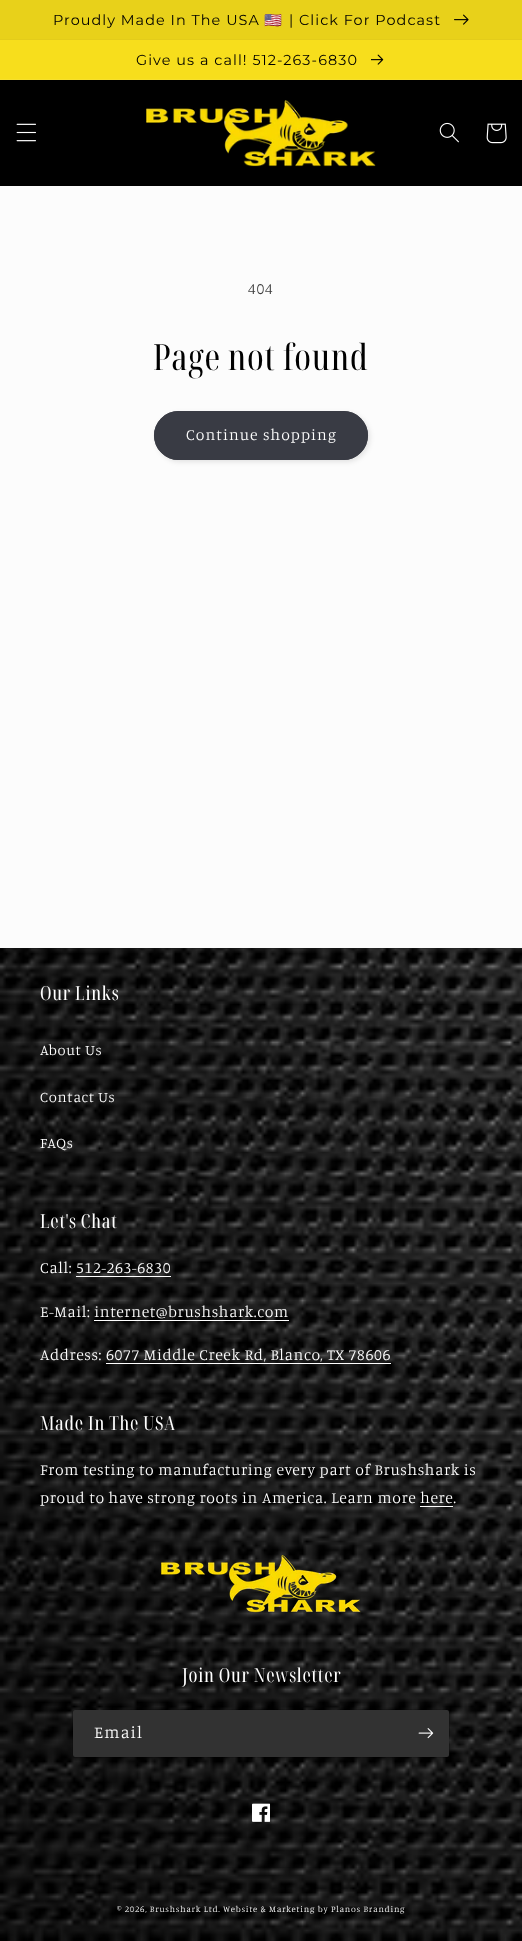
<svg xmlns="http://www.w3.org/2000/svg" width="522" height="1941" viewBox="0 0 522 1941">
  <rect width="100%" height="100%" fill="#fcfcfc"/>
  <path d="M0 39h522v1H0z" fill="#e3cc1a"/>
  <path d="M0 0h522v39H0z" fill="#e8d11a"/>
  <image x="454" y="14" width="15" height="11" href="img/1.png"/>
  <path d="M0 40h522v39H0z" fill="#f7de1c"/>
  <path d="M0 79h522v1H0z" fill="#f7e02e"/>
  <image x="371" y="54" width="13" height="11" href="img/2.png"/>
  <path d="M0 80h522v106H0z" fill="#000"/>
  <image x="16" y="123" width="20" height="19" href="img/3.png"/>
  <image x="146" y="100" width="230" height="67" href="img/4.png"/>
  <image x="439" y="122" width="20" height="21" href="img/5.png"/>
  <image x="486" y="123" width="21" height="21" href="img/6.png"/>
  <rect x="156" y="413" width="214" height="49" rx="24.5" fill="#0000001a" filter="blur(2.5px)"/>
  <rect x="154" y="411" width="214" height="49" rx="24.5" fill="#393b44"/>
  <rect x="154.5" y="411.5" width="213" height="48" rx="24" fill="none" stroke="#393b44"/>
  <image x="0" y="948" width="522" height="993" href="img/7.png"/>
  <path d="M76 1276h95v1H76z" fill="#fff"/>
  <path d="M94 1320h195v1H94z" fill="#fff"/>
  <path d="M106 1363h285v1H106z" fill="#fff"/>
  <path d="M420 1506h33v1H420z" fill="#fff"/>
  <image x="161" y="1555" width="200" height="58" href="img/8.png"/>
  <rect x="73" y="1710" width="376" height="47" rx="2" fill="#323232"/>
  <rect x="72.5" y="1709.5" width="377" height="48" rx="2.5" fill="none" stroke="#00000026"/>
  <image x="418" y="1728" width="16" height="11" href="img/9.png"/>
  <image x="252" y="1803" width="18" height="19" href="img/10.png"/>
  <path d="M99 1867h423v1H99z" fill="#00000014"/>
  <text x="53" y="25" font-family="Montserrat" font-size="14.4" letter-spacing="1.05" fill="#000">Proudly Made In The USA</text>
  <text x="264" y="25" font-family="Noto Color Emoji" font-size="14.4" letter-spacing="1.05" fill="#000">🇺🇸</text>
  <g font-family="Montserrat" font-size="14.4" letter-spacing="1.05" fill="#000">
    <text x="289" y="25">| Click For Podcast</text>
    <text x="136" y="65">Give us a call! 512-263-6830</text>
  </g>
  <text x="248" y="294" font-family="Manuale" font-size="15.75" font-weight="300" letter-spacing="0.63" fill="#3f3f3f">404</text>
  <text x="153" y="370" font-family="Noto Serif Display" font-size="36" letter-spacing="0.75" fill="#000">Page not found</text>
  <text x="186" y="440" font-family="Manuale" font-size="15.75" font-weight="300" letter-spacing="1.05" fill="#fff">Continue shopping</text>
  <text x="40" y="1000" font-family="Noto Serif Display" font-size="19.25" letter-spacing="0.75" fill="#fff">Our Links</text>
  <g font-family="Manuale" font-size="14.75" font-weight="300" letter-spacing="0.63" fill="#fff">
    <text x="40" y="1055">About Us</text>
    <text x="40" y="1102">Contact Us</text>
    <text x="40" y="1148">FAQs</text>
  </g>
  <text x="40" y="1228" font-family="Noto Serif Display" font-size="19.25" letter-spacing="0.75" fill="#fff">Let's Chat</text>
  <g font-family="Manuale" font-size="15.75" font-weight="300" letter-spacing="0.63" fill="#fff">
    <text x="40" y="1273">Call: 512-263-6830</text>
    <text x="40" y="1317">E-Mail: internet@brushshark.com</text>
    <text x="40" y="1360">Address: 6077 Middle Creek Rd, Blanco, TX 78606</text>
  </g>
  <text x="40" y="1430" font-family="Noto Serif Display" font-size="19.25" letter-spacing="0.75" fill="#fff">Made In The USA</text>
  <g font-family="Manuale" font-size="15.75" font-weight="300" letter-spacing="0.63" fill="#fff">
    <text x="40" y="1475">From testing to manufacturing every part of Brushshark is</text>
    <text x="40" y="1503">proud to have strong roots in America. Learn more here.</text>
  </g>
  <text x="182" y="1682" font-family="Noto Serif Display" font-size="19.25" letter-spacing="0.75" fill="#fff">Join Our Newsletter</text>
  <text x="94" y="1738" font-family="Manuale" font-size="17" font-weight="300" letter-spacing="1.05" fill="#fff">Email</text>
  <g font-family="Manuale" font-size="8.75" font-weight="300" letter-spacing="0.75" fill="#fff">
    <text x="117" y="1912">© 2026, Brushshark Ltd.</text>
    <text x="223" y="1912">Website &amp; Marketing by Planos Branding</text>
  </g>
</svg>
